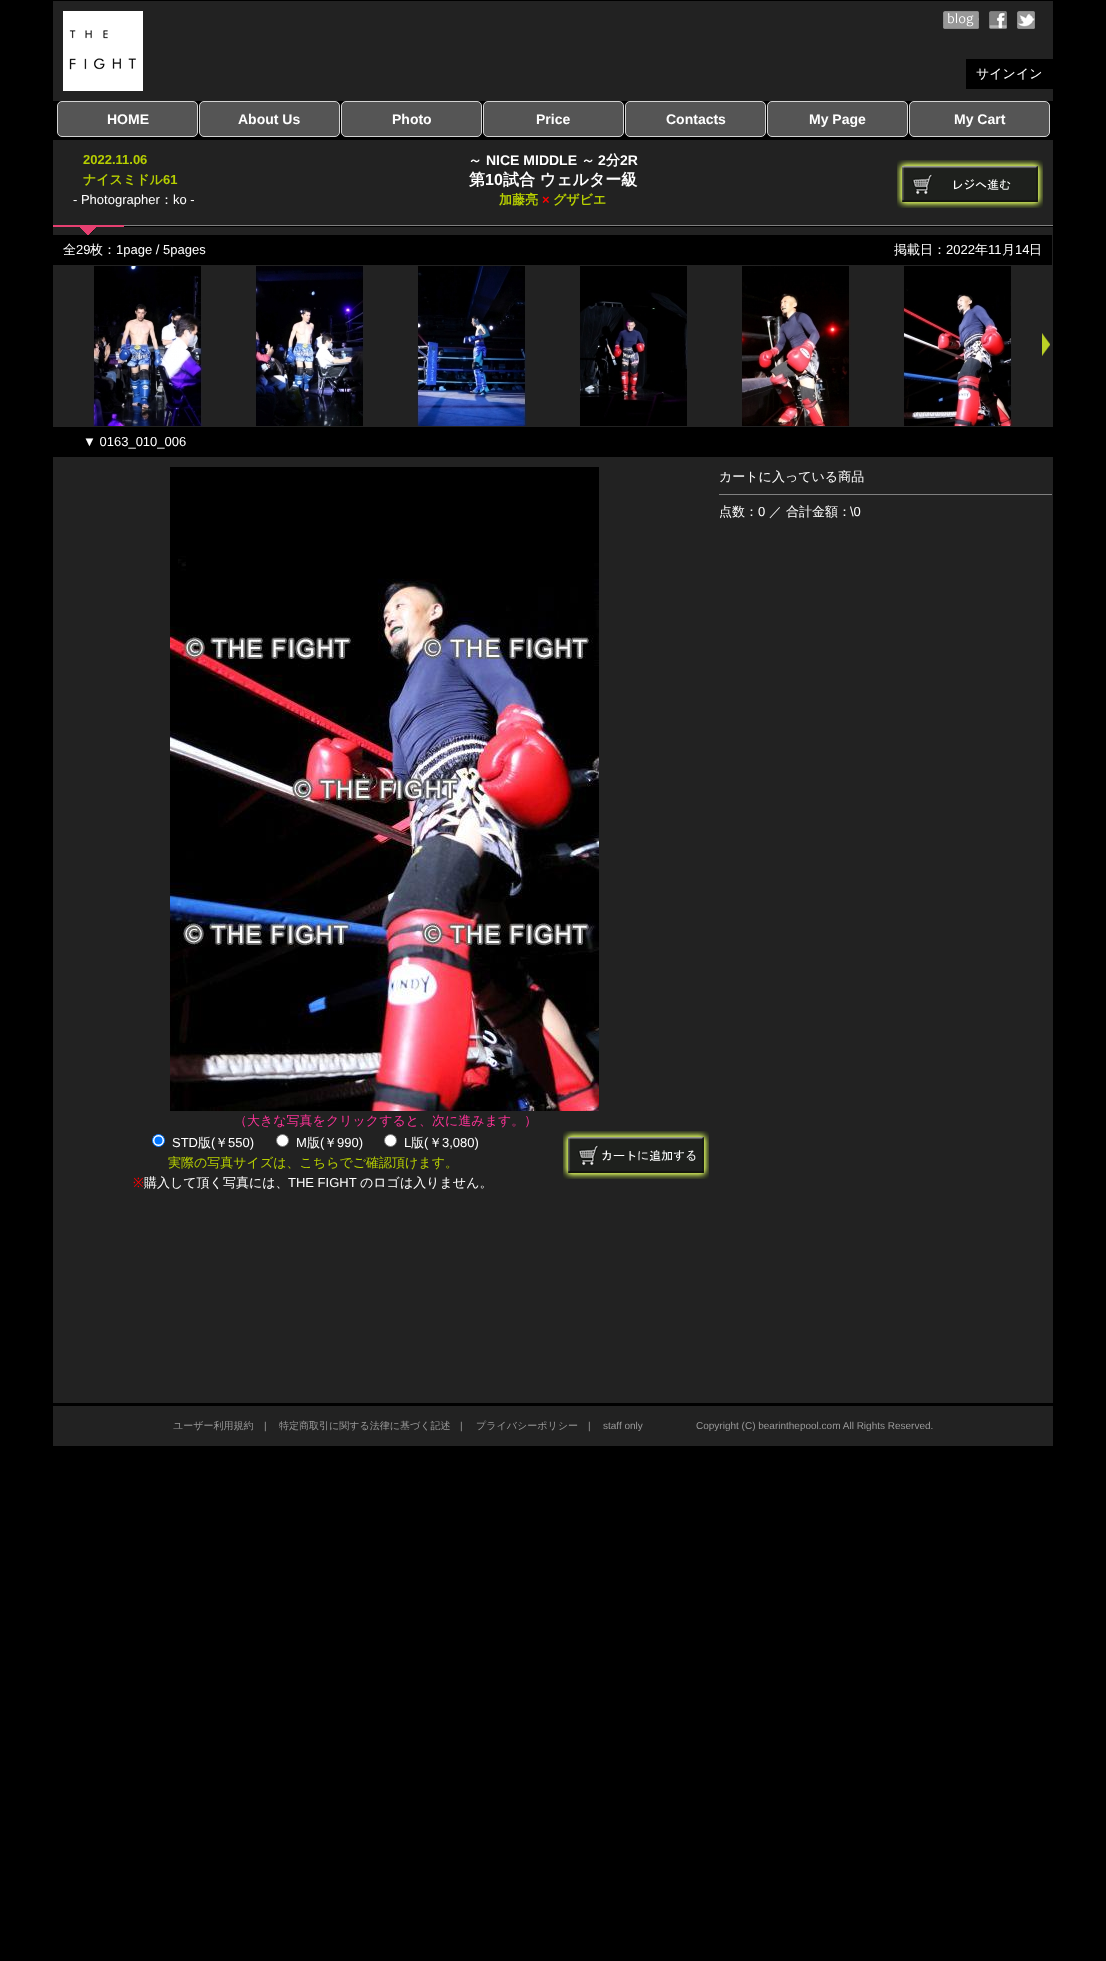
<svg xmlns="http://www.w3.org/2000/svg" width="1106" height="1961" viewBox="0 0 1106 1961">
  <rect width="100%" height="100%" fill="#000"/>
  <path d="M53 1h1000v100H53z" fill="#222"/>
  <image x="63" y="11" width="80" height="80" href="img/1.png"/>
  <image x="943" y="11" width="36" height="18" href="img/2.png"/>
  <image x="989" y="11" width="18" height="18" href="img/3.png"/>
  <image x="1017" y="11" width="18" height="18" href="img/4.png"/>
  <path d="M966 59h87v30H966z" fill="#000"/>
  <rect x="57.5" y="101.5" width="140" height="35" rx="4.5" fill="#555" stroke="#d3d3d3"/>
  <rect x="199.5" y="101.5" width="140" height="35" rx="4.5" fill="#555" stroke="#d3d3d3"/>
  <rect x="341.5" y="101.5" width="140" height="35" rx="4.5" fill="#555" stroke="#d3d3d3"/>
  <rect x="483.5" y="101.5" width="140" height="35" rx="4.5" fill="#555" stroke="#d3d3d3"/>
  <rect x="625.5" y="101.5" width="140" height="35" rx="4.5" fill="#555" stroke="#d3d3d3"/>
  <rect x="767.5" y="101.5" width="140" height="35" rx="4.5" fill="#555" stroke="#d3d3d3"/>
  <rect x="909.5" y="101.5" width="140" height="35" rx="4.5" fill="#555" stroke="#d3d3d3"/>
  <path d="M53 140h1000v1263H53z" fill="#222"/>
  <image x="897" y="160" width="146" height="48" href="img/5.png"/>
  <image x="53" y="225" width="1000" height="10" href="img/6.png"/>
  <path d="M53 235h999v30H53z" fill="#000"/>
  <image x="93" y="266" width="110" height="160" href="img/7.png"/>
  <image x="255" y="266" width="110" height="160" href="img/8.png"/>
  <image x="417" y="266" width="110" height="160" href="img/9.png"/>
  <image x="580" y="266" width="108" height="160" href="img/10.png"/>
  <image x="741" y="266" width="110" height="160" href="img/11.png"/>
  <image x="903" y="266" width="110" height="160" href="img/12.png"/>
  <image x="1042" y="333" width="8" height="23" href="img/13.png"/>
  <path d="M53 427h1000v30H53z" fill="#000"/>
  <path d="M719 494h333v1H719z" fill="#808080"/>
  <image x="170" y="467" width="429" height="644" href="img/14.png"/>
  <circle cx="158.5" cy="1140.5" r="6" fill="#fff" stroke="#0075ff"/>
  <circle cx="158.5" cy="1140.5" r="4" fill="#0075ff"/>
  <circle cx="282.5" cy="1140.5" r="6" fill="#fff" stroke="#767676"/>
  <circle cx="390.5" cy="1140.5" r="6" fill="#fff" stroke="#767676"/>
  <image x="563" y="1131" width="146" height="48" href="img/15.png"/>
  <path d="M53 1406h1000v40H53z" fill="#222"/>
  <text x="976" y="78" font-family="WenQuanYi Zen Hei" font-size="13" font-weight="500" fill="#fff">サインイン</text>
  <g font-family="Liberation Sans" font-size="14" font-weight="bold" fill="#fff">
    <text x="107" y="124">HOME</text>
    <text x="238" y="124">About Us</text>
    <text x="392" y="124">Photo</text>
    <text x="536" y="124">Price</text>
    <text x="666" y="124">Contacts</text>
    <text x="809" y="124">My Page</text>
    <text x="954" y="124">My Cart</text>
  </g>
  <text x="83" y="164" font-family="Liberation Sans" font-size="13" font-weight="bold" fill="#b7cf00">2022.11.06</text>
  <text x="83" y="184" font-family="WenQuanYi Zen Hei" font-size="13" font-weight="bold" fill="#b7cf00">ナイスミドル</text>
  <text x="163" y="184" font-family="Liberation Sans" font-size="13" font-weight="bold" fill="#b7cf00">61</text>
  <text x="73" y="204" font-family="Liberation Sans" font-size="13" fill="#fff">- Photographer</text>
  <text x="160" y="204" font-family="WenQuanYi Zen Hei" font-size="13" font-weight="500" fill="#fff">：</text>
  <text x="173" y="204" font-family="Liberation Sans" font-size="13" fill="#fff">ko -</text>
  <text x="468" y="165" font-family="WenQuanYi Zen Hei" font-size="14" font-weight="bold" fill="#fff">～</text>
  <text x="486" y="165" font-family="Liberation Sans" font-size="14" font-weight="bold" fill="#fff">NICE MIDDLE</text>
  <text x="581" y="165" font-family="WenQuanYi Zen Hei" font-size="14" font-weight="bold" fill="#fff">～</text>
  <text x="598" y="165" font-family="Liberation Sans" font-size="14" font-weight="bold" fill="#fff">2</text>
  <text x="606" y="165" font-family="WenQuanYi Zen Hei" font-size="14" font-weight="bold" fill="#fff">分</text>
  <text x="620" y="165" font-family="Liberation Sans" font-size="14" font-weight="bold" fill="#fff">2R</text>
  <text x="469" y="185" font-family="WenQuanYi Zen Hei" font-size="16" font-weight="bold" fill="#fff">第</text>
  <text x="485" y="185" font-family="Liberation Sans" font-size="16" font-weight="bold" fill="#fff">10</text>
  <text x="503" y="185" font-family="WenQuanYi Zen Hei" font-size="16" font-weight="bold" fill="#fff">試合 ウェルター級</text>
  <text x="499" y="204" font-family="WenQuanYi Zen Hei" font-size="13" font-weight="bold" fill="#b7cf00">加藤亮</text>
  <text x="542" y="204" font-family="Liberation Sans" font-size="13" font-weight="bold" fill="#f00">×</text>
  <text x="553" y="204" font-family="WenQuanYi Zen Hei" font-size="13" font-weight="bold" fill="#b7cf00">グザビエ</text>
  <text x="63" y="254" font-family="WenQuanYi Zen Hei" font-size="13" font-weight="500" fill="#fff">全</text>
  <text x="76" y="254" font-family="Liberation Sans" font-size="13" fill="#fff">29</text>
  <text x="90" y="254" font-family="WenQuanYi Zen Hei" font-size="13" font-weight="500" fill="#fff">枚：</text>
  <text x="116" y="254" font-family="Liberation Sans" font-size="13" fill="#fff">1page / 5pages</text>
  <text x="894" y="254" font-family="WenQuanYi Zen Hei" font-size="13" font-weight="500" fill="#fff">掲載日：</text>
  <text x="946" y="254" font-family="Liberation Sans" font-size="13" fill="#fff">2022</text>
  <text x="975" y="254" font-family="WenQuanYi Zen Hei" font-size="13" font-weight="500" fill="#fff">年</text>
  <text x="988" y="254" font-family="Liberation Sans" font-size="13" fill="#fff">11</text>
  <text x="1002" y="254" font-family="WenQuanYi Zen Hei" font-size="13" font-weight="500" fill="#fff">月</text>
  <text x="1015" y="254" font-family="Liberation Sans" font-size="13" fill="#fff">14</text>
  <text x="1029" y="254" font-family="WenQuanYi Zen Hei" font-size="13" font-weight="500" fill="#fff">日</text>
  <text x="83" y="446" font-family="Liberation Sans" font-size="13" fill="#fff">▼ 0163_010_006</text>
  <g font-family="WenQuanYi Zen Hei" font-size="13" font-weight="500" fill="#fff">
    <text x="719" y="481">カートに入っている商品</text>
    <text x="719" y="516">点数：</text>
  </g>
  <text x="758" y="516" font-family="Liberation Sans" font-size="13" fill="#fff">0</text>
  <text x="769" y="516" font-family="WenQuanYi Zen Hei" font-size="13" font-weight="500" fill="#fff">／ 合計金額：</text>
  <text x="850" y="516" font-family="Liberation Sans" font-size="13" fill="#fff">\0</text>
  <text x="234" y="1125" font-family="WenQuanYi Zen Hei" font-size="13" font-weight="500" fill="#f39">（大きな写真をクリックすると、次に進みます。）</text>
  <text x="172" y="1147" font-family="Liberation Sans" font-size="13" fill="#fff">STD</text>
  <text x="198" y="1147" font-family="WenQuanYi Zen Hei" font-size="13" font-weight="500" fill="#fff">版</text>
  <text x="211" y="1147" font-family="Liberation Sans" font-size="13" fill="#fff">(</text>
  <text x="215" y="1147" font-family="WenQuanYi Zen Hei" font-size="13" font-weight="500" fill="#fff">￥</text>
  <g font-family="Liberation Sans" font-size="13" fill="#fff">
    <text x="228" y="1147">550)</text>
    <text x="296" y="1147">M</text>
  </g>
  <text x="307" y="1147" font-family="WenQuanYi Zen Hei" font-size="13" font-weight="500" fill="#fff">版</text>
  <text x="320" y="1147" font-family="Liberation Sans" font-size="13" fill="#fff">(</text>
  <text x="324" y="1147" font-family="WenQuanYi Zen Hei" font-size="13" font-weight="500" fill="#fff">￥</text>
  <g font-family="Liberation Sans" font-size="13" fill="#fff">
    <text x="337" y="1147">990)</text>
    <text x="404" y="1147">L</text>
  </g>
  <text x="411" y="1147" font-family="WenQuanYi Zen Hei" font-size="13" font-weight="500" fill="#fff">版</text>
  <text x="424" y="1147" font-family="Liberation Sans" font-size="13" fill="#fff">(</text>
  <text x="429" y="1147" font-family="WenQuanYi Zen Hei" font-size="13" font-weight="500" fill="#fff">￥</text>
  <text x="442" y="1147" font-family="Liberation Sans" font-size="13" fill="#fff">3,080)</text>
  <text x="168" y="1167" font-family="WenQuanYi Zen Hei" font-size="13" font-weight="500" fill="#b7cf00">実際の写真サイズは、こちらでご確認頂けます。</text>
  <text x="133" y="1187" font-family="Noto Sans" font-size="13" fill="#f00">※</text>
  <text x="144" y="1187" font-family="WenQuanYi Zen Hei" font-size="13" font-weight="500" fill="#fff">購入して頂く写真には、</text>
  <text x="288" y="1187" font-family="Liberation Sans" font-size="13" fill="#fff">THE FIGHT</text>
  <text x="360" y="1187" font-family="WenQuanYi Zen Hei" font-size="13" font-weight="500" fill="#fff">のロゴは入りません。</text>
  <text x="173" y="1429" font-family="WenQuanYi Zen Hei" font-size="10" font-weight="500" fill="#999">ユーザー利用規約</text>
  <text x="264" y="1429" font-family="Liberation Sans" font-size="10" fill="#999">|</text>
  <text x="279" y="1429" font-family="WenQuanYi Zen Hei" font-size="10" font-weight="500" fill="#999">特定商取引に関する法律に基づく記述</text>
  <text x="460" y="1429" font-family="Liberation Sans" font-size="10" fill="#999">|</text>
  <text x="476" y="1429" font-family="WenQuanYi Zen Hei" font-size="10" font-weight="500" fill="#999">プライバシーポリシー</text>
  <g font-family="Liberation Sans" font-size="10" fill="#999">
    <text x="588" y="1429">|</text>
    <text x="603" y="1429">staff only</text>
    <text x="696" y="1429">Copyright (C) bearinthepool.com All Rights Reserved.</text>
  </g>
</svg>
